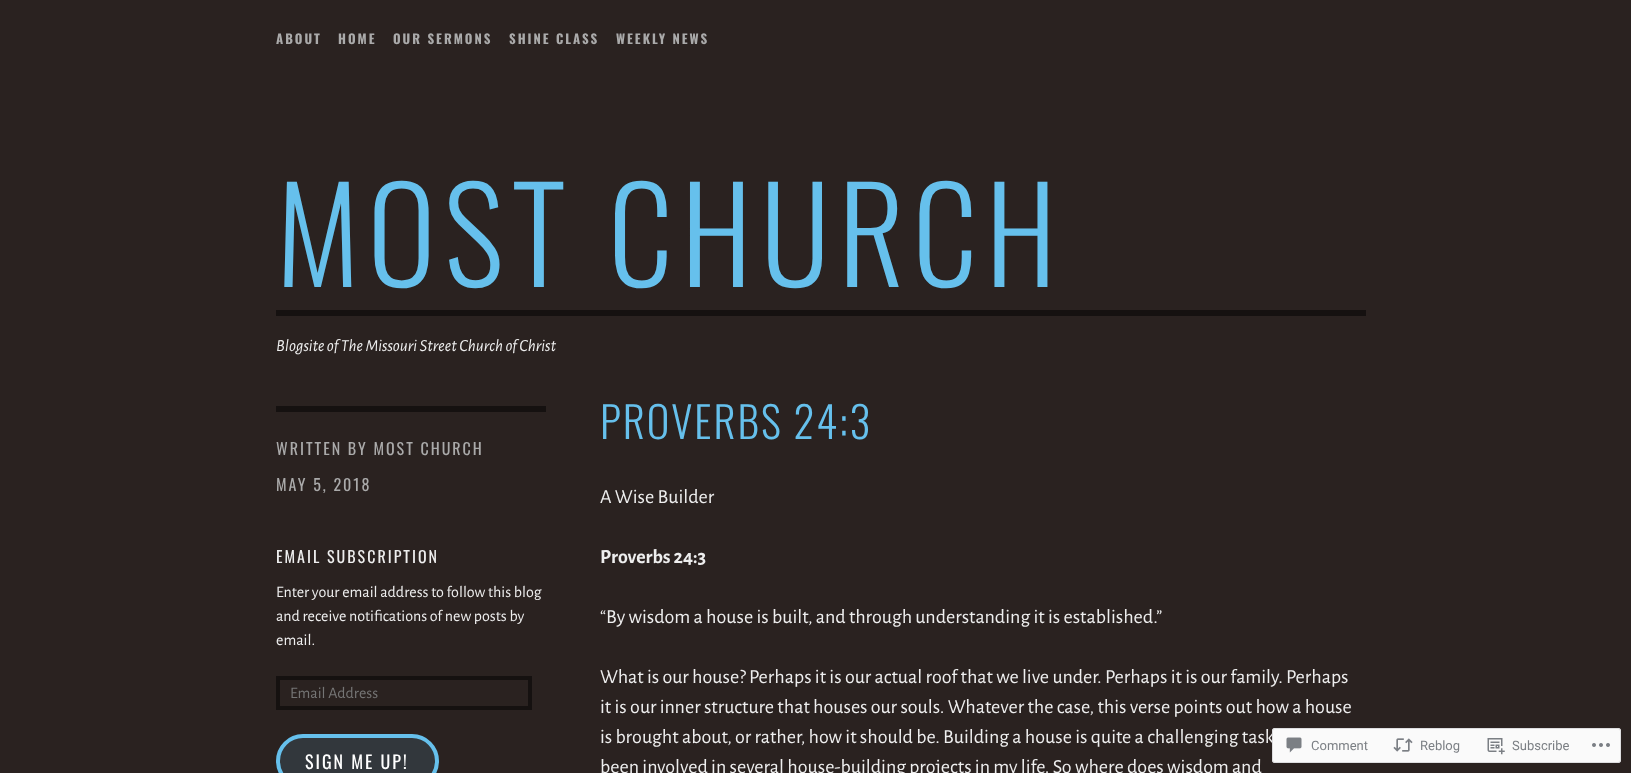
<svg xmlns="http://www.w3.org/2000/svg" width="1631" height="773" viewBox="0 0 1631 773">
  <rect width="100%" height="100%" fill="#2a2220"/>
  <path d="M276 310h1090v6H276z" fill="#151110"/>
  <path d="M276 406h270v6H276z" fill="#151110"/>
  <path d="M278 678H530V708H278Z" fill="none" stroke="#151110" stroke-width="4"/>
  <rect x="278" y="736" width="159" height="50" rx="25" fill="#32373c" stroke="#66c0ec" stroke-width="4"/>
  <g font-family="Oswald" font-size="13" font-weight="bold" letter-spacing="2" fill="#aaa">
    <text x="276" y="44">ABOUT</text>
    <text x="338" y="44">HOME</text>
    <text x="393" y="44">OUR SERMONS</text>
    <text x="509" y="44">SHINE CLASS</text>
    <text x="616" y="44">WEEKLY NEWS</text>
  </g>
  <text x="276" y="287" font-family="Oswald" font-size="130" font-weight="300" letter-spacing="8" fill="#66c0ec">MOST CHURCH</text>
  <text x="276" y="351" font-family="Alegreya Sans" font-size="17" font-style="italic" fill="#eee">Blogsite of The Missouri Street Church of Christ</text>
  <text x="600" y="439" font-family="Oswald" font-size="43" font-weight="300" letter-spacing="2" fill="#66c0ec">PROVERBS 24:3</text>
  <g font-family="Oswald" font-size="16" letter-spacing="2" fill="#aaa">
    <text x="276" y="455">WRITTEN BY MOST CHURCH</text>
    <text x="276" y="491">MAY 5, 2018</text>
  </g>
  <text x="276" y="563" font-family="Oswald" font-size="16" letter-spacing="2" fill="#eee">EMAIL SUBSCRIPTION</text>
  <g font-family="Alegreya Sans" font-size="16" fill="#eee">
    <text x="276" y="597">Enter your email address to follow this blog</text>
    <text x="276" y="621">and receive notifications of new posts by</text>
    <text x="276" y="645">email.</text>
  </g>
  <text x="290" y="698" font-family="Alegreya Sans" font-size="16" fill="#757575">Email Address</text>
  <text x="305" y="769" font-family="Oswald" font-size="18" letter-spacing="2" fill="#fff">SIGN ME UP!</text>
  <text x="600" y="503" font-family="Alegreya Sans" font-size="20" fill="#eee">A Wise Builder</text>
  <text x="600" y="563" font-family="Alegreya Sans" font-size="20" font-weight="bold" fill="#eee">Proverbs 24:3</text>
  <g font-family="Alegreya Sans" font-size="20" fill="#eee">
    <text x="600" y="623">“By wisdom a house is built, and through understanding it is established.”</text>
    <text x="600" y="683">What is our house? Perhaps it is our actual roof that we live under. Perhaps it is our family. Perhaps</text>
    <text x="600" y="713">it is our inner structure that houses our souls. Whatever the case, this verse points out how a house</text>
    <text x="600" y="743">is brought about, or rather, how it should be. Building a house is quite a challenging task</text>
    <text x="600" y="773">been involved in several house-building projects in my life. So where does wisdom and</text>
  </g>
  <rect x="1272" y="728" width="349" height="35" rx="3" fill="#fffffffa"/>
  <rect x="1272.5" y="728.5" width="348" height="34" rx="2.5" fill="none" stroke="#dcdcdefa"/>
  <image x="1286" y="737" width="16" height="16" href="img/1.png"/>
  <text x="1311" y="750" font-family="Roboto" font-size="13" fill="#7b7f84">Comment</text>
  <image x="1393" y="738" width="20" height="14" href="img/2.png"/>
  <text x="1420" y="750" font-family="Roboto" font-size="13" fill="#7b7f84">Reblog</text>
  <image x="1487" y="738" width="18" height="17" href="img/3.png"/>
  <text x="1512" y="750" font-family="Roboto" font-size="13" fill="#7b7f84">Subscribe</text>
  <image x="1592" y="743" width="18" height="4" href="img/4.png"/>
</svg>
